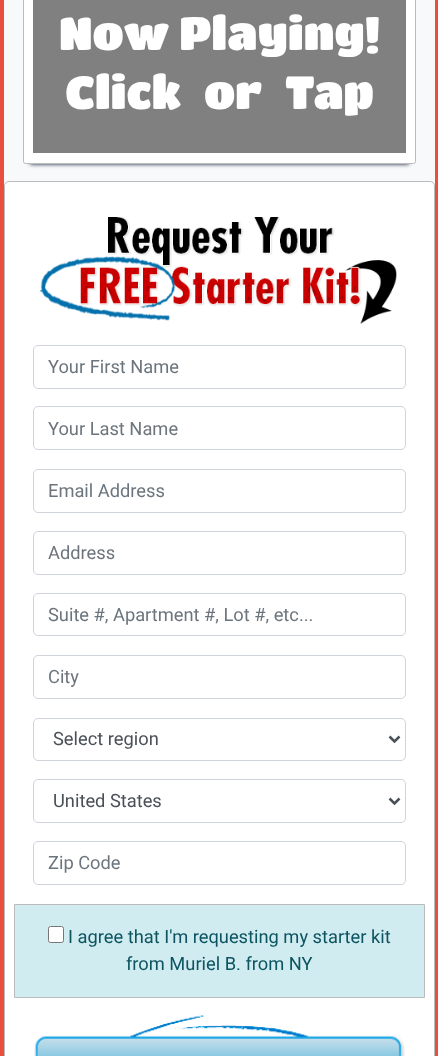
<svg xmlns="http://www.w3.org/2000/svg" width="438" height="1056" viewBox="0 0 438 1056">
  <rect width="100%" height="100%" fill="#f8f9fa"/>
  <path d="M435 0h3v1056H435z" fill="#ea4e3d"/>
  <path d="M0 0h4v1056H0z" fill="#ea4e3d"/>
  <path d="M30 -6h379v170H30z" fill="#011632" filter="blur(2px)"/>
  <rect x="23.5" y="-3.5" width="392" height="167" rx="2" fill="#fff" stroke="#bbb"/>
  <path d="M33 0h373v153H33z" fill="#808080"/>
  <rect x="4.5" y="181.5" width="430" height="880" rx="4.5" fill="#fff" stroke="#bbb"/>
  <image x="38" y="217" width="359" height="107" href="img/1.png"/>
  <rect x="33.5" y="345.5" width="372" height="43" rx="4.5" fill="none" stroke="#ced4da"/>
  <rect x="33.5" y="406.5" width="372" height="43" rx="4.5" fill="none" stroke="#ced4da"/>
  <rect x="33.5" y="469.5" width="372" height="43" rx="4.5" fill="none" stroke="#ced4da"/>
  <rect x="33.5" y="531.5" width="372" height="43" rx="4.5" fill="none" stroke="#ced4da"/>
  <rect x="33.5" y="593.5" width="372" height="42" rx="4.5" fill="none" stroke="#ced4da"/>
  <rect x="33.5" y="655.5" width="372" height="43" rx="4.5" fill="none" stroke="#ced4da"/>
  <rect x="33.5" y="718.5" width="372" height="42" rx="4.5" fill="none" stroke="#ced4da"/>
  <path d="M389.5 736.5L394.5 741.5L399.5 736.5" fill="none" stroke="#495057" stroke-width="2.5"/>
  <rect x="33.5" y="779.5" width="372" height="43" rx="4.5" fill="none" stroke="#ced4da"/>
  <path d="M389.5 798.5L394.5 803.5L399.5 798.5" fill="none" stroke="#495057" stroke-width="2.5"/>
  <rect x="33.5" y="841.5" width="372" height="43" rx="4.5" fill="none" stroke="#ced4da"/>
  <path d="M14.5 904.5h410v93H14.5z" fill="#d1ecf1" stroke="#bbb"/>
  <rect x="48.5" y="926.5" width="15" height="16" rx="2" fill="#fff" stroke="#767676"/>
  <image x="34" y="1015" width="371" height="41" href="img/2.png"/>
  <g font-family="Titan One" font-size="45.75" fill="#fff">
    <text x="59" y="50">Now Playing!</text>
    <text x="65" y="109">Click</text>
    <text x="204" y="109">or</text>
    <text x="285" y="109">Tap</text>
  </g>
  <g font-family="Roboto" font-size="18.3" fill="#6c757d">
    <text x="48" y="373">Your First Name</text>
    <text x="48" y="435">Your Last Name</text>
    <text x="48" y="497">Email Address</text>
    <text x="48" y="559">Address</text>
    <text x="48" y="621">Suite #, Apartment #, Lot #, etc...</text>
    <text x="48" y="683">City</text>
  </g>
  <g font-family="Roboto" font-size="18.3" fill="#495057">
    <text x="53" y="745">Select region</text>
    <text x="53" y="807">United States</text>
  </g>
  <text x="48" y="869" font-family="Roboto" font-size="18.3" fill="#6c757d">Zip Code</text>
  <g font-family="Roboto" font-size="18.3" fill="#0c5460">
    <text x="68" y="943">I agree that I'm requesting my starter kit</text>
    <text x="126" y="970">from Muriel B. from NY</text>
  </g>
</svg>
